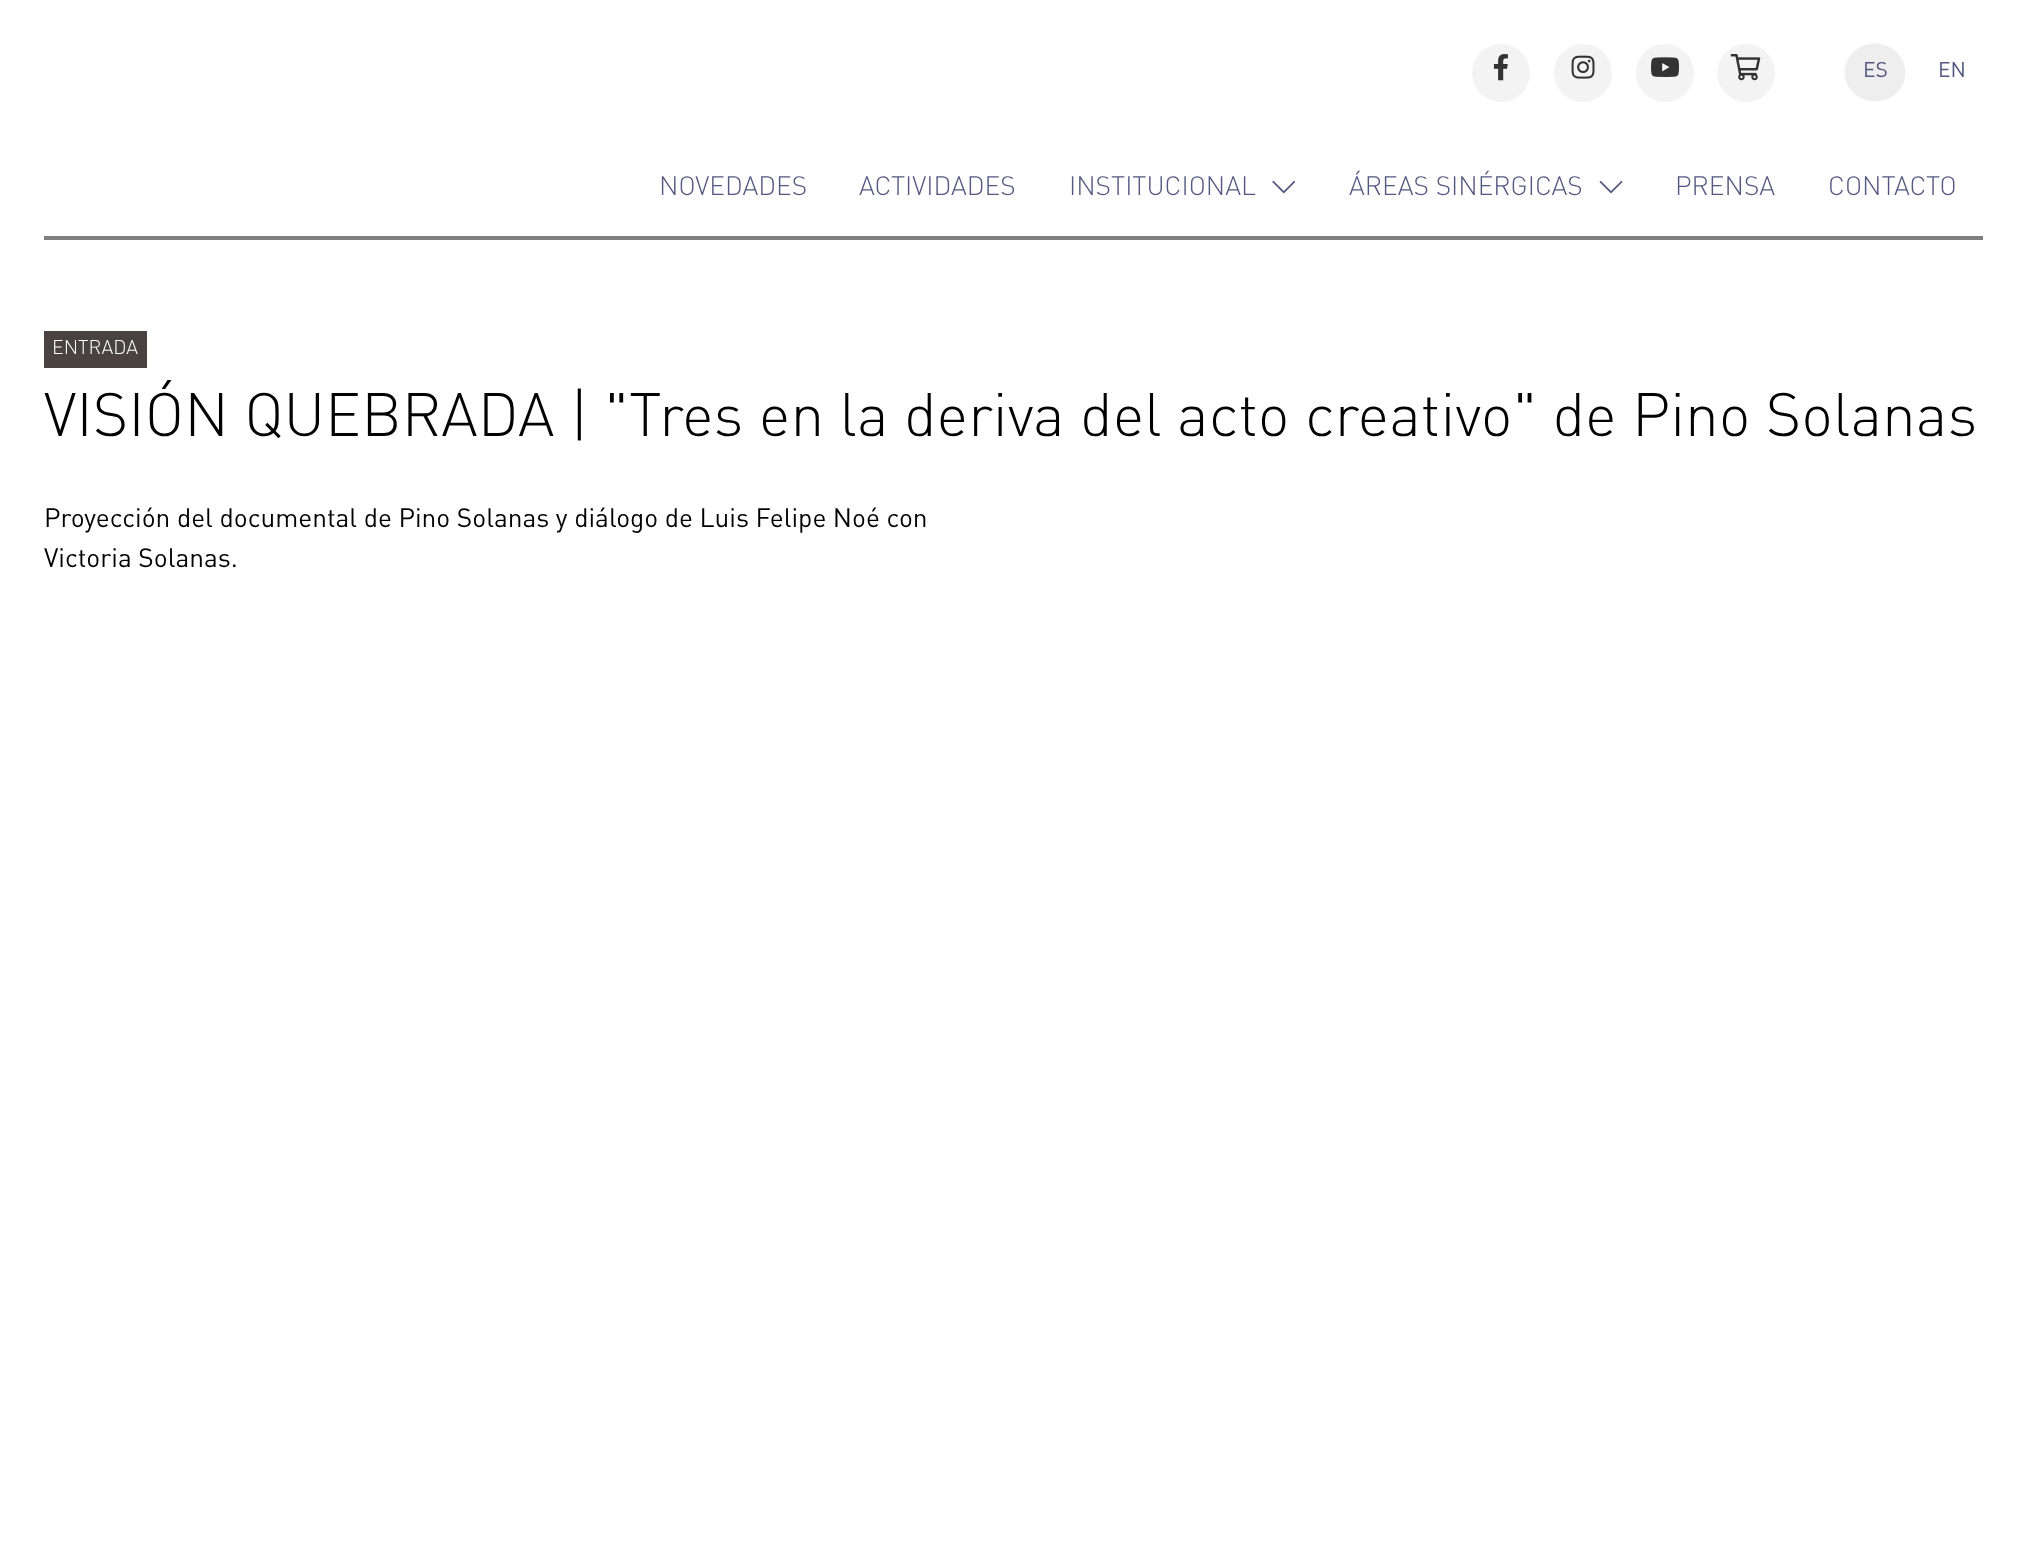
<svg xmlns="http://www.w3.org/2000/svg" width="2026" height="1549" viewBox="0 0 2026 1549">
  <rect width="100%" height="100%" fill="#fff"/>
  <circle cx="1501" cy="73" r="29" fill="#f3f3f3"/>
  <image x="1493" y="54" width="15" height="27" href="img/1.png"/>
  <circle cx="1583" cy="73" r="29" fill="#f3f3f3"/>
  <image x="1571" y="55" width="24" height="24" href="img/2.png"/>
  <circle cx="1665" cy="73" r="29" fill="#f3f3f3"/>
  <image x="1651" y="57" width="28" height="20" href="img/3.png"/>
  <circle cx="1746" cy="73" r="29" fill="#f3f3f3"/>
  <image x="1730" y="54" width="31" height="27" href="img/4.png"/>
  <ellipse cx="1875" cy="72.5" rx="30.5" ry="29" fill="#eee"/>
  <path d="M44 236h1939v4H44z" fill="#7f7f7f"/>
  <image x="1272" y="180" width="24" height="14" href="img/5.png"/>
  <image x="1599" y="180" width="24" height="14" href="img/6.png"/>
  <path d="M44 331h103v37H44z" fill="#484242"/>
  <g font-family="DIN" font-size="21" fill="#545880">
    <text x="1863" y="77">ES</text>
    <text x="1938" y="77">EN</text>
  </g>
  <g font-family="DIN" font-size="26.25" font-weight="300" fill="#545880">
    <text x="659" y="195">NOVEDADES</text>
    <text x="859" y="195">ACTIVIDADES</text>
    <text x="1069" y="195">INSTITUCIONAL</text>
    <text x="1349" y="195">ÁREAS SINÉRGICAS</text>
    <text x="1675" y="195">PRENSA</text>
    <text x="1828" y="195">CONTACTO</text>
  </g>
  <text x="52" y="354" font-family="DIN" font-size="19.5" font-weight="300" fill="#fff">ENTRADA</text>
  <text x="44" y="436" font-family="DIN" font-size="60.4" font-weight="300" fill="#000">VISIÓN QUEBRADA | "Tres en la deriva del acto creativo" de Pino Solanas</text>
  <g font-family="DIN" font-size="26.25" fill="#000">
    <text x="44" y="527">Proyección del documental de Pino Solanas y diálogo de Luis Felipe Noé con</text>
    <text x="44" y="567">Victoria Solanas.</text>
  </g>
</svg>
